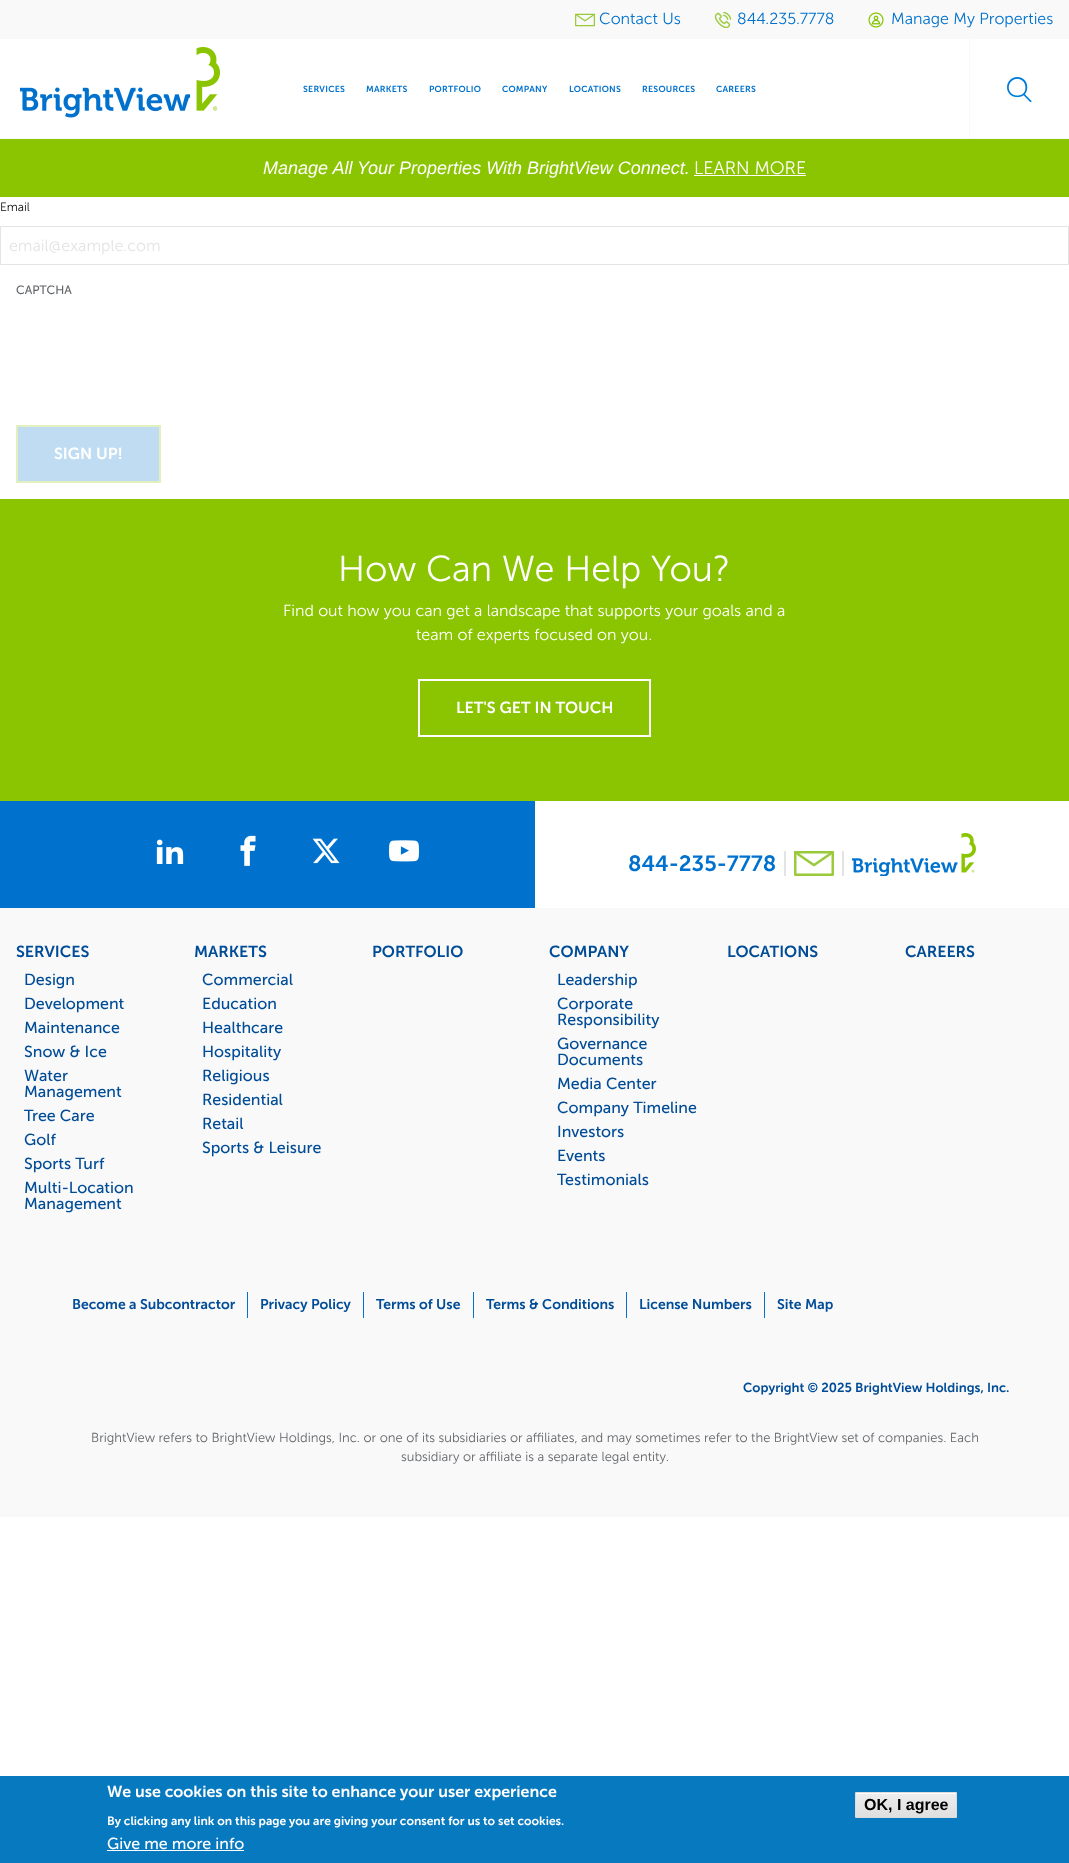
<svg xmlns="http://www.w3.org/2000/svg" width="1069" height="1863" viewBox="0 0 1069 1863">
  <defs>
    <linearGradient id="g1" gradientUnits="userSpaceOnUse" x1="906" y1="1793" x2="906" y2="1817"><stop offset="0.05" stop-color="#ededed"/><stop offset="1" stop-color="#dfdfdf"/></linearGradient>
  </defs>
  <rect width="100%" height="100%" fill="#fff"/>
  <path d="M0 138h1069v1H0z" fill="#f9f9f9"/>
  <path d="M0 0h1069v39H0z" fill="#f9f9f9"/>
  <image x="575" y="13" width="20" height="14" href="img/1.png"/>
  <image x="714" y="12" width="18" height="16" href="img/2.png"/>
  <image x="868" y="12" width="16" height="16" href="img/3.png"/>
  <image x="20" y="47" width="200" height="71" href="img/4.png"/>
  <image x="1007" y="77" width="25" height="25" href="img/5.png"/>
  <path d="M969 39h1v100H969z" fill="#f9f9f9"/>
  <path d="M0 139h1069v58H0z" fill="#8bc400"/>
  <path d="M694 175h112v1H694z" fill="#fff"/>
  <path d="M0.5 226.5h1068v38H0.5z" fill="none" stroke="#e4e4e4"/>
  <path d="M17 426h143v56H17z" fill="#bfdcf3" stroke="#e2f0bf" stroke-width="2"/>
  <path d="M0 908h1069v609H0z" fill="#f9f9f9"/>
  <path d="M0 499h1069v302H0z" fill="#8bc400"/>
  <path d="M419 680h231v56H419z" fill="none" stroke="#fff" stroke-width="2"/>
  <path d="M0 801h535v107H0z" fill="#0072ce"/>
  <image x="156" y="839" width="28" height="25" href="img/6.png"/>
  <image x="240" y="835" width="16" height="31" href="img/7.png"/>
  <image x="312" y="838" width="28" height="26" href="img/8.png"/>
  <image x="389" y="840" width="30" height="22" href="img/9.png"/>
  <path d="M842 851h2v25H842z" fill="#e4e4e4"/>
  <path d="M784 851h2v25H784z" fill="#e4e4e4"/>
  <image x="794" y="851" width="40" height="25" href="img/10.png"/>
  <image x="852" y="833" width="124" height="43" href="img/11.png"/>
  <path d="M247 1292h1v26H247z" fill="#0072ce"/>
  <path d="M363 1292h1v26H363z" fill="#0072ce"/>
  <path d="M473 1292h1v26H473z" fill="#0072ce"/>
  <path d="M626 1292h1v26H626z" fill="#0072ce"/>
  <path d="M764 1292h1v26H764z" fill="#0072ce"/>
  <path d="M0 1776h1069v87H0z" fill="#0779bf"/>
  <path d="M107 1850h137v1H107z" fill="#fff"/>
  <path d="M856 1794h100v23H856z" fill="url(#g1)"/>
  <path d="M856 1793h100v1H856z" fill="#fff"/>
  <path d="M855.5 1792.5h101v25H855.5z" fill="none" stroke="#dcdcdc"/>
  <g font-family="Museo Sans" font-size="16" font-weight="300" fill="#0072ce">
    <text x="599" y="24">Contact Us</text>
    <text x="737" y="24">844.235.7778</text>
    <text x="891" y="24">Manage My Properties</text>
  </g>
  <g font-family="Museo Sans" font-size="8.75" font-weight="600" letter-spacing="0.25" fill="#0072ce">
    <text x="303" y="92">SERVICES</text>
    <text x="366" y="92">MARKETS</text>
    <text x="429" y="92">PORTFOLIO</text>
    <text x="502" y="92">COMPANY</text>
    <text x="569" y="92">LOCATIONS</text>
    <text x="642" y="92">RESOURCES</text>
    <text x="716" y="92">CAREERS</text>
  </g>
  <text x="263" y="174" font-family="Liberation Sans" font-size="18" font-style="italic" fill="#fff">Manage All Your Properties With BrightView Connect.</text>
  <text x="694" y="174" font-family="Museo Sans" font-size="18" font-weight="300" fill="#fff">LEARN MORE</text>
  <text x="0" y="211" font-family="Museo Sans" font-size="12" font-weight="300" fill="#0a0a0a">Email</text>
  <text x="9" y="251" font-family="Museo Sans" font-size="16" font-weight="300" fill="#e4e4e4">email@example.com</text>
  <text x="16" y="294" font-family="Museo Sans" font-size="12" fill="#63666a">CAPTCHA</text>
  <text x="54" y="459" font-family="Museo Sans" font-size="16" font-weight="600" fill="#fff">SIGN UP!</text>
  <text x="338" y="581" font-family="Museo Sans" font-size="36" font-weight="300" fill="#fff">How Can We Help You?</text>
  <g font-family="Museo Sans" font-size="16" font-weight="300" fill="#fff">
    <text x="283" y="616">Find out how you can get a landscape that supports your goals and a</text>
    <text x="416" y="640">team of experts focused on you.</text>
  </g>
  <text x="456" y="713" font-family="Museo Sans" font-size="16" font-weight="600" fill="#fff">LET'S GET IN TOUCH</text>
  <text x="628" y="871" font-family="Museo Sans" font-size="22" font-weight="600" fill="#0072ce">844-235-7778</text>
  <text x="16" y="957" font-family="Museo Sans" font-size="16" font-weight="600" fill="#004c97">SERVICES</text>
  <g font-family="Museo Sans" font-size="16" fill="#004c97">
    <text x="24" y="985">Design</text>
    <text x="24" y="1009">Development</text>
    <text x="24" y="1033">Maintenance</text>
    <text x="24" y="1057">Snow &amp; Ice</text>
    <text x="24" y="1081">Water</text>
    <text x="24" y="1097">Management</text>
    <text x="24" y="1121">Tree Care</text>
    <text x="24" y="1145">Golf</text>
    <text x="24" y="1169">Sports Turf</text>
    <text x="24" y="1193">Multi-Location</text>
    <text x="24" y="1209">Management</text>
  </g>
  <text x="194" y="957" font-family="Museo Sans" font-size="16" font-weight="600" fill="#004c97">MARKETS</text>
  <g font-family="Museo Sans" font-size="16" fill="#004c97">
    <text x="202" y="985">Commercial</text>
    <text x="202" y="1009">Education</text>
    <text x="202" y="1033">Healthcare</text>
    <text x="202" y="1057">Hospitality</text>
    <text x="202" y="1081">Religious</text>
    <text x="202" y="1105">Residential</text>
    <text x="202" y="1129">Retail</text>
    <text x="202" y="1153">Sports &amp; Leisure</text>
  </g>
  <g font-family="Museo Sans" font-size="16" font-weight="600" fill="#004c97">
    <text x="372" y="957">PORTFOLIO</text>
    <text x="549" y="957">COMPANY</text>
  </g>
  <g font-family="Museo Sans" font-size="16" fill="#004c97">
    <text x="557" y="985">Leadership</text>
    <text x="557" y="1009">Corporate</text>
    <text x="557" y="1025">Responsibility</text>
    <text x="557" y="1049">Governance</text>
    <text x="557" y="1065">Documents</text>
    <text x="557" y="1089">Media Center</text>
    <text x="557" y="1113">Company Timeline</text>
    <text x="557" y="1137">Investors</text>
    <text x="557" y="1161">Events</text>
    <text x="557" y="1185">Testimonials</text>
  </g>
  <g font-family="Museo Sans" font-size="16" font-weight="600" fill="#004c97">
    <text x="727" y="957">LOCATIONS</text>
    <text x="905" y="957">CAREERS</text>
  </g>
  <g font-family="Museo Sans" font-size="14" font-weight="600" fill="#004c97">
    <text x="72" y="1309">Become a Subcontractor</text>
    <text x="260" y="1309">Privacy Policy</text>
    <text x="376" y="1309">Terms of Use</text>
    <text x="486" y="1309">Terms &amp; Conditions</text>
    <text x="639" y="1309">License Numbers</text>
    <text x="777" y="1309">Site Map</text>
  </g>
  <text x="743" y="1392" font-family="Museo Sans" font-size="13" font-weight="600" fill="#004c97">Copyright © 2025 BrightView Holdings, Inc.</text>
  <g font-family="Museo Sans" font-size="13" font-weight="300" fill="#63666a">
    <text x="91" y="1442">BrightView refers to BrightView Holdings, Inc. or one of its subsidiaries or affiliates, and may sometimes refer to the BrightView set of companies. Each</text>
    <text x="401" y="1461">subsidiary or affiliate is a separate legal entity.</text>
  </g>
  <text x="107" y="1797" font-family="Museo Sans" font-size="16" font-weight="600" fill="#fff">We use cookies on this site to enhance your user experience</text>
  <text x="107" y="1825" font-family="Museo Sans" font-size="12" font-weight="600" fill="#fff">By clicking any link on this page you are giving your consent for us to set cookies.</text>
  <text x="107" y="1849" font-family="Museo Sans" font-size="16" fill="#fff">Give me more info</text>
  <text x="864" y="1810" font-family="Liberation Sans" font-size="16" font-weight="bold" fill="#000">OK, I agree</text>
</svg>
